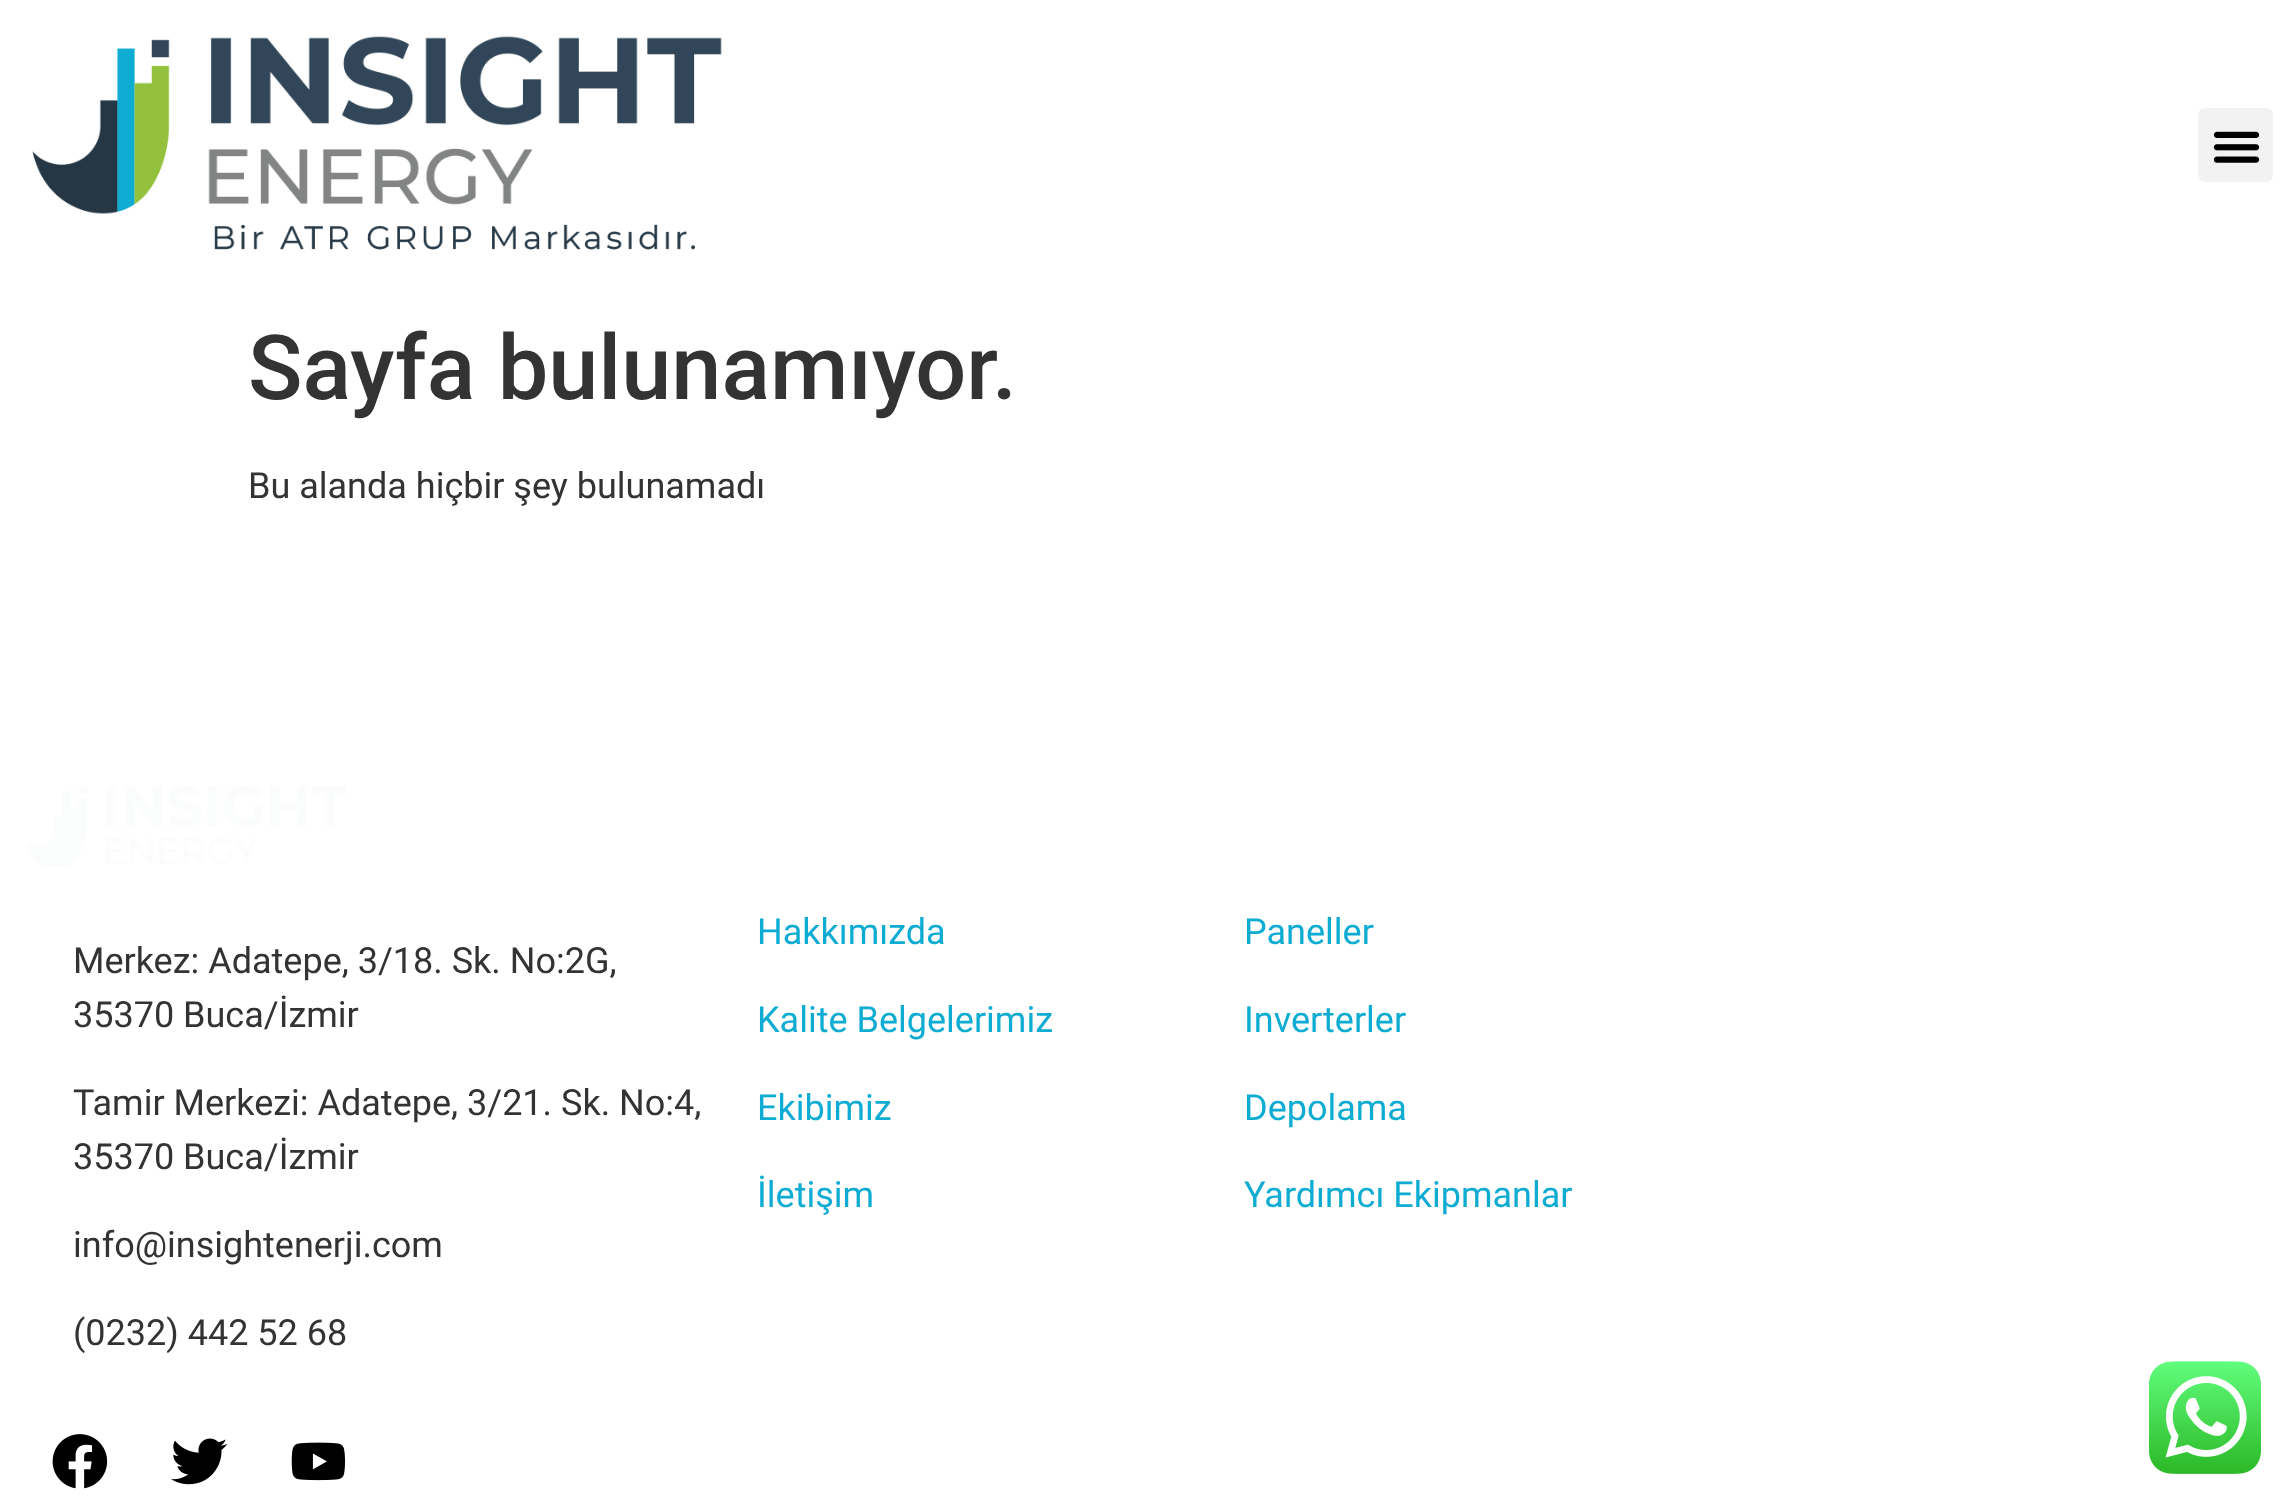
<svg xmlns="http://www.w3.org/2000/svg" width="2294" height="1507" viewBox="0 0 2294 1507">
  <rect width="100%" height="100%" fill="#fff"/>
  <image x="32" y="36" width="690" height="214" href="img/1.png"/>
  <rect x="2198" y="108" width="75" height="74" rx="7" fill="#f2f2f2"/>
  <image x="2213" y="131" width="47" height="32" href="img/2.png"/>
  <image x="27" y="786" width="319" height="80" href="img/3.png"/>
  <image x="52" y="1434" width="56" height="55" href="img/4.png"/>
  <image x="171" y="1438" width="56" height="47" href="img/5.png"/>
  <image x="291" y="1442" width="55" height="39" href="img/6.png"/>
  <image x="2149" y="1361" width="112" height="113" href="img/7.png"/>
  <text x="248" y="399" font-family="Roboto" font-size="90" font-weight="500" fill="#333">Sayfa bulunamıyor.</text>
  <g font-family="Roboto" font-size="36" fill="#333">
    <text x="248" y="498">Bu alanda hiçbir şey bulunamadı</text>
    <text x="73" y="973">Merkez: Adatepe, 3/18. Sk. No:2G,</text>
    <text x="73" y="1027">35370 Buca/İzmir</text>
    <text x="73" y="1115">Tamir Merkezi: Adatepe, 3/21. Sk. No:4,</text>
    <text x="73" y="1169">35370 Buca/İzmir</text>
    <text x="73" y="1257">info@insightenerji.com</text>
    <text x="73" y="1345">(0232) 442 52 68</text>
  </g>
  <g font-family="Roboto" font-size="36" fill="#0eacd2">
    <text x="757" y="944">Hakkımızda</text>
    <text x="757" y="1032">Kalite Belgelerimiz</text>
    <text x="757" y="1120">Ekibimiz</text>
    <text x="757" y="1207">İletişim</text>
    <text x="1244" y="944">Paneller</text>
    <text x="1244" y="1032">Inverterler</text>
    <text x="1244" y="1120">Depolama</text>
    <text x="1244" y="1207">Yardımcı Ekipmanlar</text>
  </g>
</svg>
